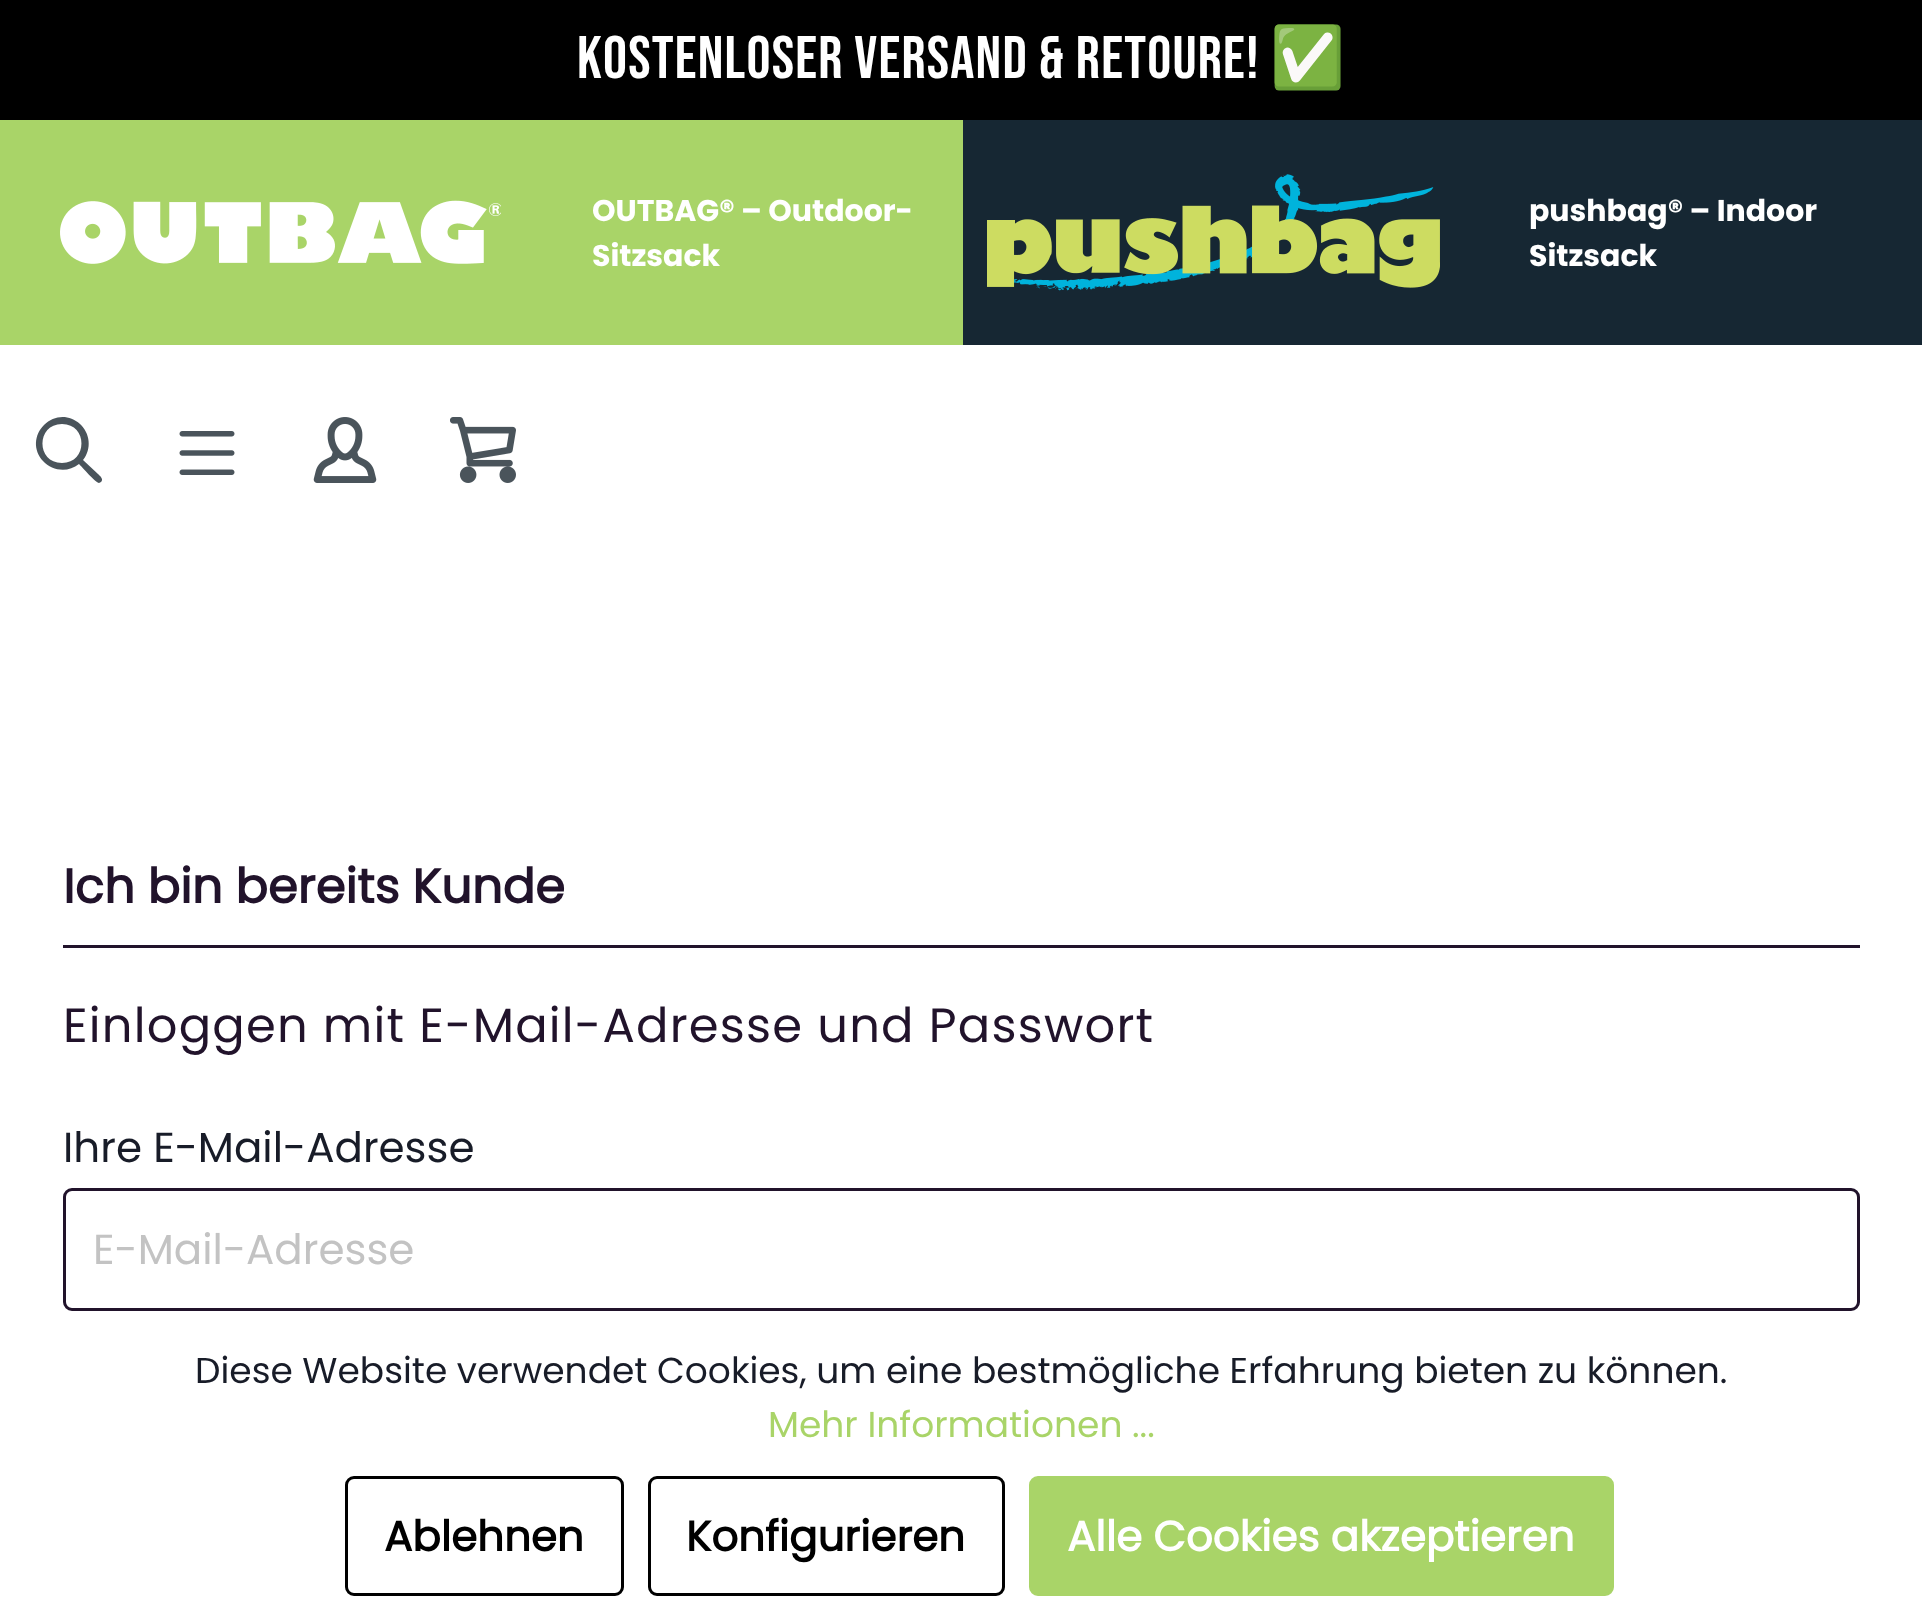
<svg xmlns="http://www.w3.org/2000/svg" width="1922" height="1620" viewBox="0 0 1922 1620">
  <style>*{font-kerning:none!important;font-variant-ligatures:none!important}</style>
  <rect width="100%" height="100%" fill="#fff"/>
  <path d="M0 0h1922v120H0z" fill="#000"/>
  <path d="M0 120h963v225H0z" fill="#a9d468"/>
  <image x="60" y="200" width="441" height="64" href="img/1.png"/>
  <path d="M963 120h959v225H963z" fill="#162733"/>
  <image x="987" y="174" width="453" height="117" href="img/2.png"/>
  <path d="M99 483C96 483 82 467 79 464C68 473 52 471 43 461C33 450 34 435 44 425C54 415 69 414 80 424C90 433 92 449 83 460L98 474C100 476 104 479 101 482ZM62 424C36 424 36 463 62 463C88 463 88 424 62 424Z" fill="#4a545b"/>
  <image x="179" y="431" width="56" height="44" href="img/3.png"/>
  <image x="313" y="417" width="64" height="66" href="img/4.png"/>
  <image x="450" y="417" width="66" height="66" href="img/5.png"/>
  <path d="M63 945h1797v3H63z" fill="#21132b"/>
  <rect x="64.5" y="1189.5" width="1794" height="120" rx="7.5" fill="none" stroke="#21132b" stroke-width="3"/>
  <rect x="346.5" y="1477.5" width="276" height="117" rx="7.5" fill="none" stroke="#000" stroke-width="3"/>
  <rect x="649.5" y="1477.5" width="354" height="117" rx="7.5" fill="none" stroke="#000" stroke-width="3"/>
  <rect x="1030.5" y="1477.5" width="582" height="117" rx="7.5" fill="#a9d468" stroke="#a9d468" stroke-width="3"/>
  <text x="577" y="78" font-family="Bebas Neue" font-size="60" letter-spacing="1.2" fill="#fff">Kostenloser Versand &amp; Retoure!</text>
  <text x="1270" y="78" font-family="Noto Color Emoji" font-size="60" letter-spacing="1.2" fill="#fff">✅</text>
  <g font-family="'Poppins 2'" font-size="30" font-weight="bold" fill="#fff">
    <text x="592" y="221">OUTBAG® – Outdoor-</text>
    <text x="592" y="266">Sitzsack</text>
    <text x="1529" y="221">pushbag® – Indoor</text>
    <text x="1529" y="266">Sitzsack</text>
  </g>
  <text x="63" y="903" font-family="Poppins" font-size="48" font-weight="bold" fill="#21132b">Ich bin bereits Kunde</text>
  <text x="63" y="1042" font-family="Poppins" font-size="48" letter-spacing="1.2" fill="#21132b">Einloggen mit E-Mail-Adresse und Passwort</text>
  <text x="63" y="1162" font-family="Poppins" font-size="42" fill="#181c28">Ihre E-Mail-Adresse</text>
  <text x="93" y="1264" font-family="Poppins" font-size="42" fill="#c3c3c3">E-Mail-Adresse</text>
  <text x="195" y="1383" font-family="Poppins" font-size="36" fill="#181c28">Diese Website verwendet Cookies, um eine bestmögliche Erfahrung bieten zu können.</text>
  <text x="768" y="1437" font-family="Poppins" font-size="36" fill="#a9d468">Mehr Informationen ...</text>
  <g font-family="Poppins" font-size="42" font-weight="bold" fill="#000">
    <text x="384" y="1551">Ablehnen</text>
    <text x="686" y="1551">Konfigurieren</text>
  </g>
  <text x="1067" y="1551" font-family="Poppins" font-size="42" font-weight="bold" fill="#fff">Alle Cookies akzeptieren</text>
</svg>
